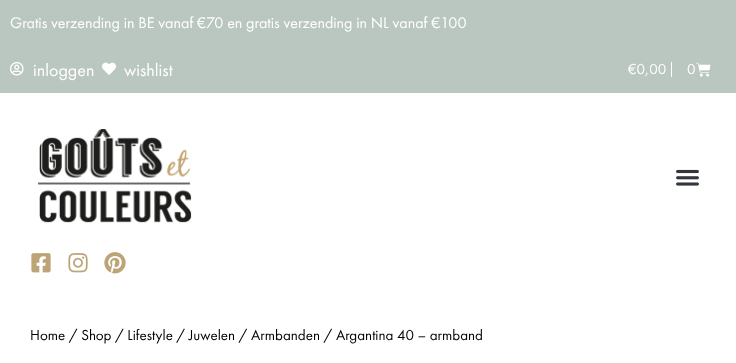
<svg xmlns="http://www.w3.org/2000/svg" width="736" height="363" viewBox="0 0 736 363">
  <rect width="100%" height="100%" fill="#fff"/>
  <path d="M0 0h736v93H0z" fill="#bac7c1"/>
  <image x="10" y="62" width="14" height="14" href="img/1.png"/>
  <image x="102" y="62" width="14" height="13" href="img/2.png"/>
  <path d="M671 62h1v15H671z" fill="#fff"/>
  <image x="696" y="62" width="15" height="15" href="img/3.png"/>
  <image x="38" y="129" width="154" height="94" href="img/4.png"/>
  <image x="676" y="169" width="23" height="17" href="img/5.png"/>
  <image x="31" y="253" width="20" height="20" href="img/6.png"/>
  <image x="68" y="253" width="20" height="20" href="img/7.png"/>
  <image x="104" y="252" width="22" height="22" href="img/8.png"/>
  <text x="10" y="28" font-family="Futura PT" font-size="16" fill="#fff">Gratis verzending in BE vanaf €70 en gratis verzending in NL vanaf €100</text>
  <g font-family="Futura PT" font-size="18" fill="#fff">
    <text x="33" y="76">inloggen</text>
    <text x="124" y="76">wishlist</text>
  </g>
  <g font-family="Futura PT" font-size="15" fill="#fff">
    <text x="628" y="74">€0,00</text>
    <text x="687" y="74">0</text>
  </g>
  <text x="30" y="340" font-family="Futura PT" font-size="15" fill="#000">Home / Shop / Lifestyle / Juwelen / Armbanden / Argantina 40 – armband</text>
</svg>
